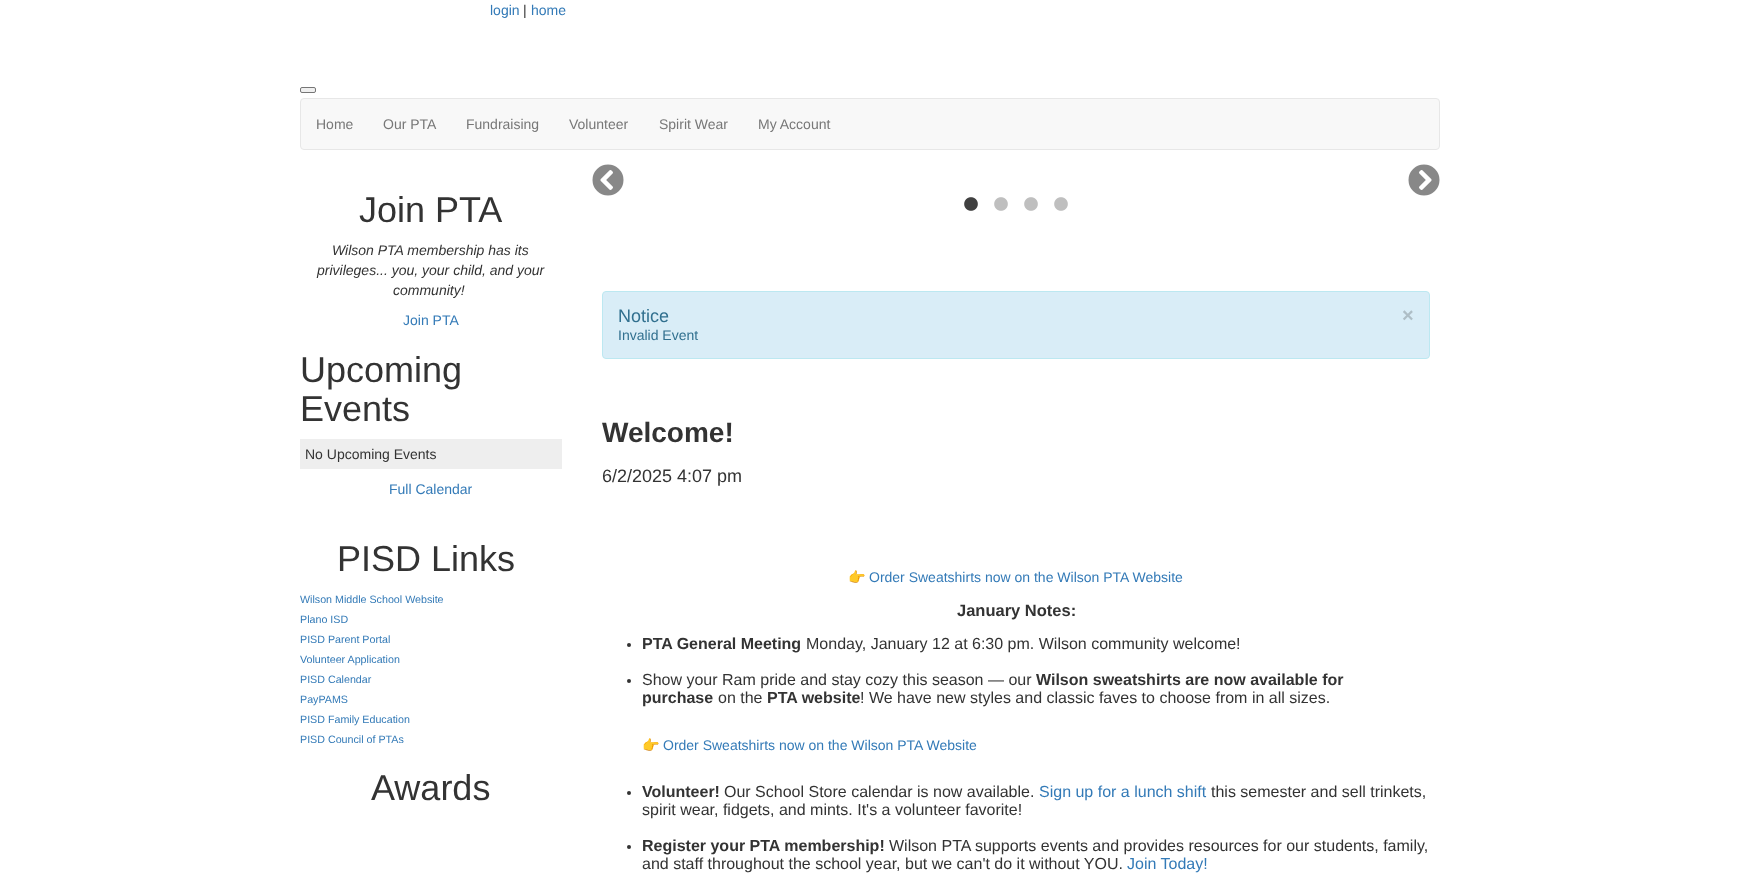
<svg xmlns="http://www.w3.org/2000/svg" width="1739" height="892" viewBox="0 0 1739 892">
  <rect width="100%" height="100%" fill="#fff"/>
  <rect x="300.5" y="87.5" width="15" height="5" rx="1.5" fill="#efefef" stroke="#767676"/>
  <rect x="300.5" y="98.5" width="1139" height="51" rx="3.5" fill="#f8f8f8" stroke="#e7e7e7"/>
  <path d="M300 439h262v30H300z" fill="#eee"/>
  <image x="592" y="164" width="32" height="32" href="img/1.png"/>
  <image x="1408" y="164" width="32" height="32" href="img/2.png"/>
  <image x="964" y="197" width="14" height="14" href="img/3.png"/>
  <image x="994" y="197" width="14" height="14" href="img/4.png"/>
  <image x="1024" y="197" width="14" height="14" href="img/4.png"/>
  <image x="1054" y="197" width="14" height="14" href="img/4.png"/>
  <rect x="602.5" y="291.5" width="827" height="67" rx="3.5" fill="#d9edf7" stroke="#bce8f1"/>
  <circle cx="629" cy="645" r="2" fill="#333"/>
  <circle cx="629" cy="681" r="2" fill="#333"/>
  <circle cx="629" cy="793" r="2" fill="#333"/>
  <circle cx="629" cy="847" r="2" fill="#333"/>
  <text x="490" y="15" font-family="Liberation Sans" font-size="14" fill="#337ab7">login</text>
  <text x="523" y="15" font-family="Liberation Sans" font-size="14" fill="#333">|</text>
  <text x="531" y="15" font-family="Liberation Sans" font-size="14" fill="#337ab7">home</text>
  <g font-family="Liberation Sans" font-size="14" fill="#777">
    <text x="316" y="129">Home</text>
    <text x="383" y="129">Our PTA</text>
    <text x="466" y="129">Fundraising</text>
    <text x="569" y="129">Volunteer</text>
    <text x="659" y="129">Spirit Wear</text>
    <text x="758" y="129">My Account</text>
  </g>
  <text x="359" y="222" font-family="Liberation Sans" font-size="36" fill="#333">Join PTA</text>
  <g font-family="Liberation Sans" font-size="14" font-style="italic" fill="#333">
    <text x="332" y="255">Wilson PTA membership has its</text>
    <text x="317" y="275">privileges... you, your child, and your</text>
    <text x="393" y="295">community!</text>
  </g>
  <text x="403" y="325" font-family="Liberation Sans" font-size="14" fill="#337ab7">Join PTA</text>
  <g font-family="Liberation Sans" font-size="36" fill="#333">
    <text x="300" y="382">Upcoming</text>
    <text x="300" y="421">Events</text>
  </g>
  <text x="305" y="459" font-family="Liberation Sans" font-size="14" fill="#333">No Upcoming Events</text>
  <text x="389" y="494" font-family="Liberation Sans" font-size="14" fill="#337ab7">Full Calendar</text>
  <text x="337" y="571" font-family="Liberation Sans" font-size="36" fill="#333">PISD Links</text>
  <g font-family="Liberation Sans" font-size="10.7" fill="#337ab7">
    <text x="300" y="603">Wilson Middle School Website</text>
    <text x="300" y="623">Plano ISD</text>
    <text x="300" y="643">PISD Parent Portal</text>
    <text x="300" y="663">Volunteer Application</text>
    <text x="300" y="683">PISD Calendar</text>
    <text x="300" y="703">PayPAMS</text>
    <text x="300" y="723">PISD Family Education</text>
    <text x="300" y="743">PISD Council of PTAs</text>
  </g>
  <text x="371" y="800" font-family="Liberation Sans" font-size="36" fill="#333">Awards</text>
  <text x="618" y="322" font-family="Liberation Sans" font-size="18" fill="#31708f">Notice</text>
  <text x="1402" y="322" font-family="Liberation Sans" font-size="20" font-weight="bold" fill="#aebec6">×</text>
  <text x="618" y="340" font-family="Liberation Sans" font-size="14" fill="#31708f">Invalid Event</text>
  <text x="602" y="442" font-family="Liberation Sans" font-size="28" font-weight="bold" fill="#333">Welcome!</text>
  <text x="602" y="482" font-family="Liberation Sans" font-size="18" fill="#333">6/2/2025 4:07 pm</text>
  <text x="848" y="582" font-family="Noto Color Emoji" font-size="14" fill="#333">👉</text>
  <text x="869" y="582" font-family="Liberation Sans" font-size="14" fill="#337ab7">Order Sweatshirts now on the Wilson PTA Website</text>
  <text x="957" y="616" font-family="Liberation Sans" font-size="16.5" font-weight="bold" fill="#333">January Notes:</text>
  <text x="642" y="649" font-family="Liberation Sans" font-size="16" font-weight="bold" fill="#333">PTA General Meeting</text>
  <g font-family="Liberation Sans" font-size="16" fill="#333">
    <text x="806" y="649">Monday, January 12 at 6:30 pm. Wilson community welcome!</text>
    <text x="642" y="685">Show your Ram pride and stay cozy this season — our</text>
  </g>
  <g font-family="Liberation Sans" font-size="16" font-weight="bold" fill="#333">
    <text x="1036" y="685">Wilson sweatshirts are now available for</text>
    <text x="642" y="703">purchase</text>
  </g>
  <text x="718" y="703" font-family="Liberation Sans" font-size="16" fill="#333">on the</text>
  <text x="767" y="703" font-family="Liberation Sans" font-size="16" font-weight="bold" fill="#333">PTA website</text>
  <text x="860" y="703" font-family="Liberation Sans" font-size="16" fill="#333">! We have new styles and classic faves to choose from in all sizes.</text>
  <text x="642" y="750" font-family="Noto Color Emoji" font-size="14" fill="#333">👉</text>
  <text x="663" y="750" font-family="Liberation Sans" font-size="14" fill="#337ab7">Order Sweatshirts now on the Wilson PTA Website</text>
  <text x="642" y="797" font-family="Liberation Sans" font-size="16" font-weight="bold" fill="#333">Volunteer!</text>
  <text x="724" y="797" font-family="Liberation Sans" font-size="16" fill="#333">Our School Store calendar is now available.</text>
  <text x="1039" y="797" font-family="Liberation Sans" font-size="16" fill="#337ab7">Sign up for a lunch shift</text>
  <g font-family="Liberation Sans" font-size="16" fill="#333">
    <text x="1211" y="797">this semester and sell trinkets,</text>
    <text x="642" y="815">spirit wear, fidgets, and mints. It's a volunteer favorite!</text>
  </g>
  <text x="642" y="851" font-family="Liberation Sans" font-size="16" font-weight="bold" fill="#333">Register your PTA membership!</text>
  <g font-family="Liberation Sans" font-size="16" fill="#333">
    <text x="889" y="851">Wilson PTA supports events and provides resources for our students, family,</text>
    <text x="642" y="869">and staff throughout the school year, but we can't do it without YOU.</text>
  </g>
  <text x="1127" y="869" font-family="Liberation Sans" font-size="16" fill="#337ab7">Join Today!</text>
</svg>
